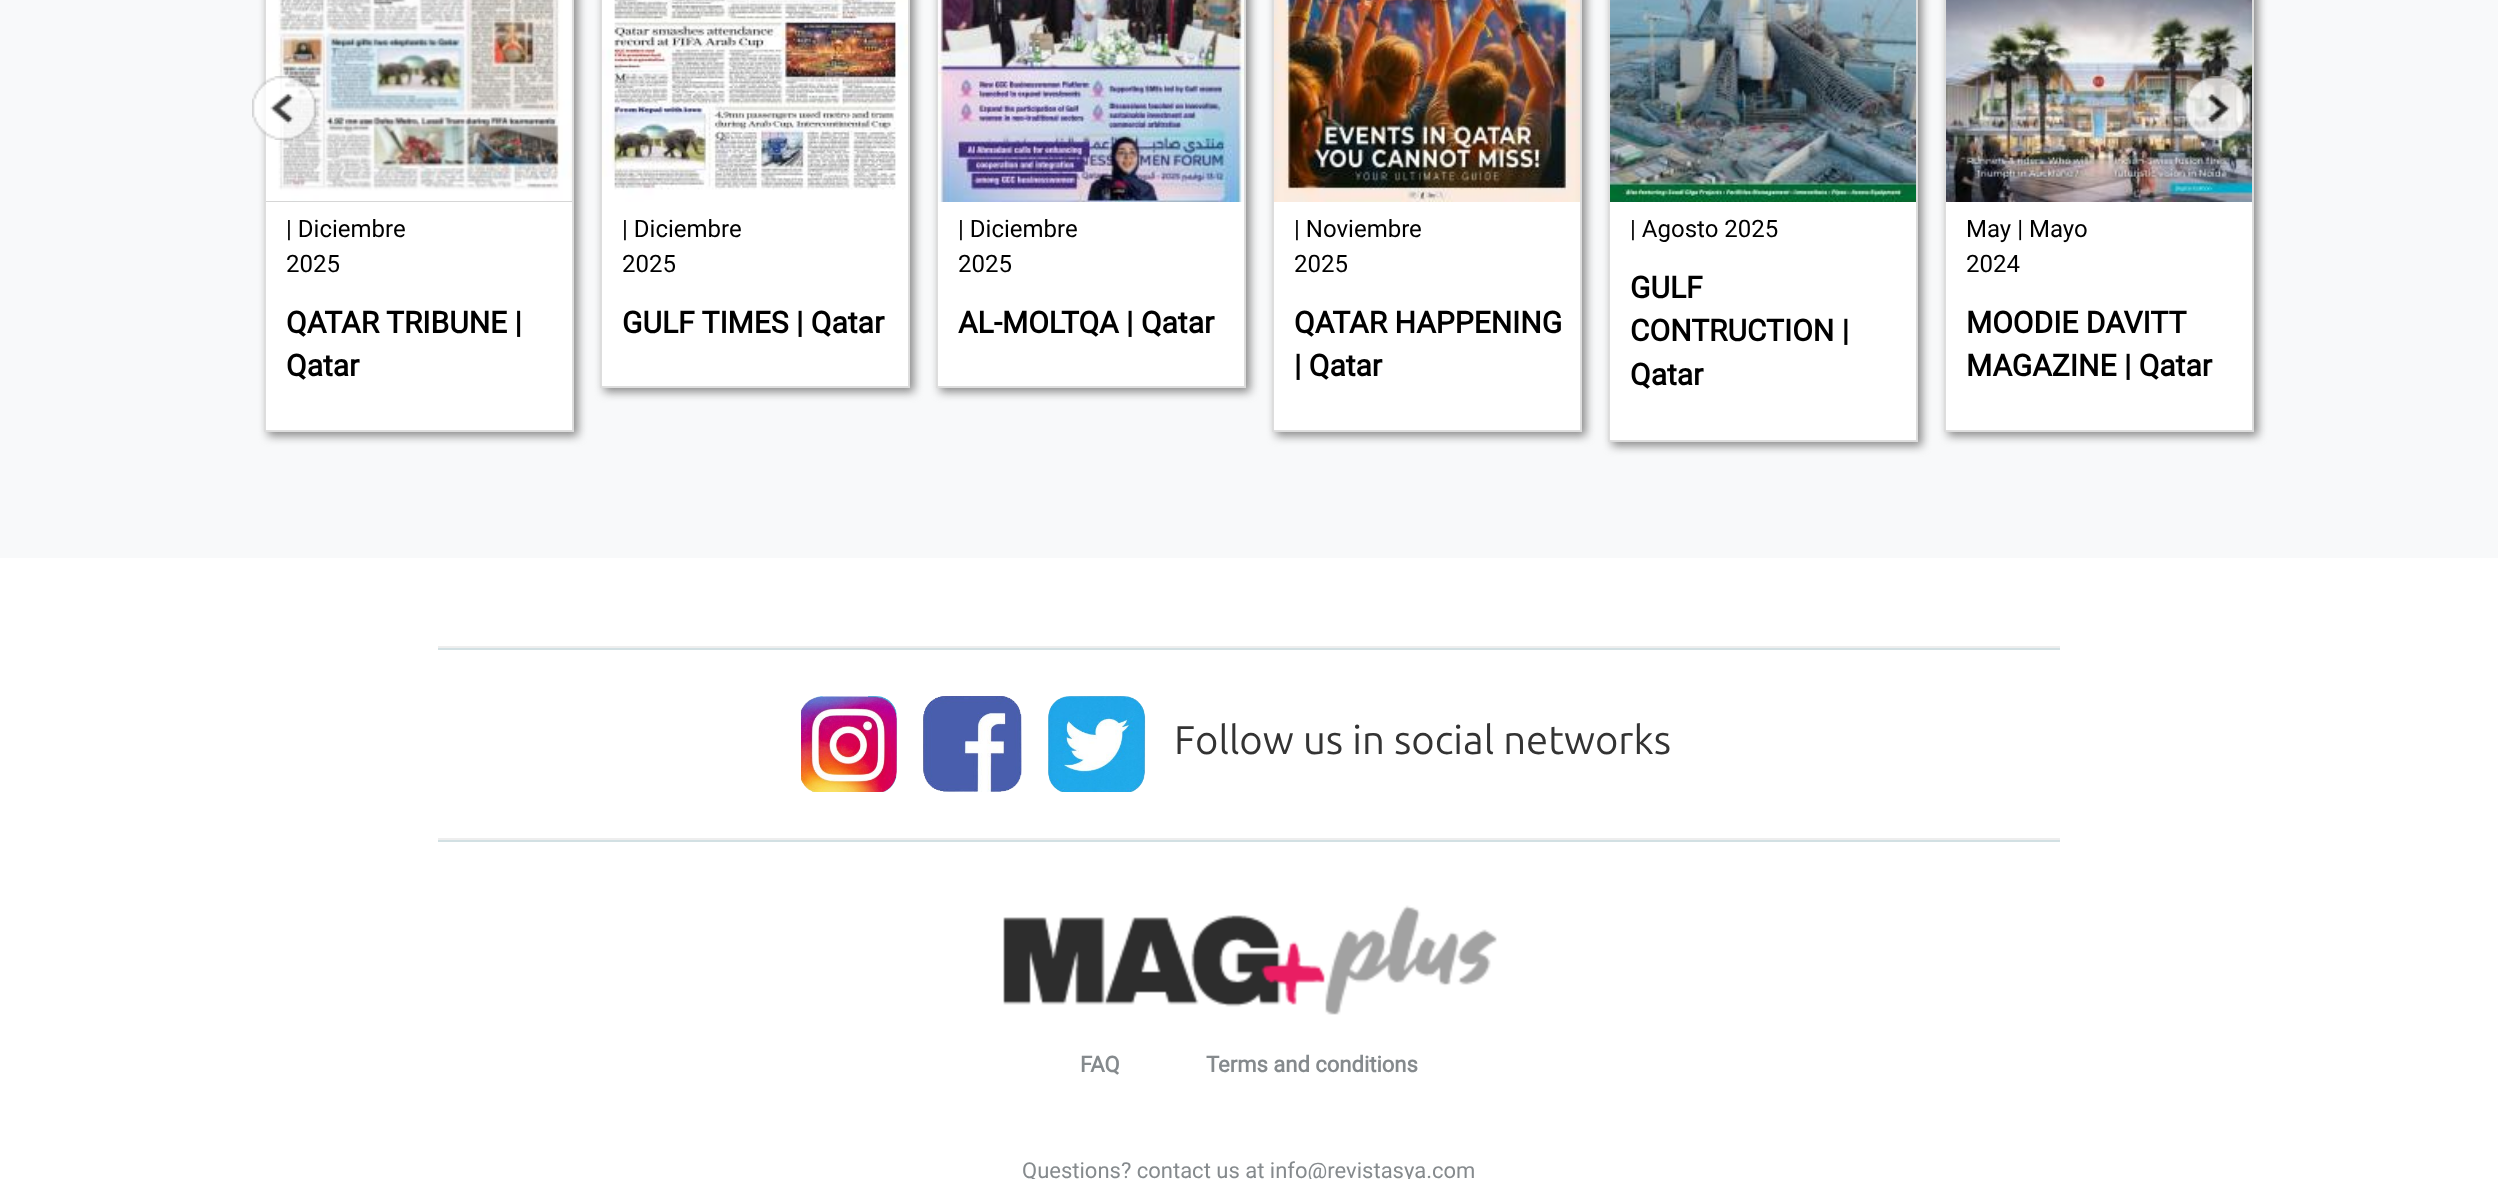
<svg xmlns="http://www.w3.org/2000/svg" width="2498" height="1179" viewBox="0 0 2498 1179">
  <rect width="100%" height="100%" fill="#f8f9fa"/>
  <path d="M268 -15h310v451H268z" fill="#888" filter="blur(5px)"/>
  <path d="M266 202h306v228H266z" fill="#fff"/>
  <path d="M265 -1h308v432H265z" fill="none" stroke="#ddd" stroke-width="2"/>
  <path d="M266 0h306v202H266z" fill="#808080"/>
  <image x="266" y="0" width="306" height="202" href="img/3.png"/>
  <image x="252" y="76" width="64" height="64" href="img/1.png"/>
  <path d="M1948 -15h310v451H1948z" fill="#888" filter="blur(5px)"/>
  <path d="M1946 202h306v228H1946z" fill="#fff"/>
  <path d="M1945 -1h308v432H1945z" fill="none" stroke="#ddd" stroke-width="2"/>
  <image x="1946" y="0" width="306" height="202" href="img/8.png"/>
  <image x="2184" y="76" width="64" height="64" href="img/2.png"/>
  <path d="M604 -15h310v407H604z" fill="#888" filter="blur(5px)"/>
  <path d="M602 202h306v184H602z" fill="#fff"/>
  <path d="M601 -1h308v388H601z" fill="none" stroke="#ddd" stroke-width="2"/>
  <image x="602" y="0" width="306" height="202" href="img/4.png"/>
  <path d="M940 -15h310v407H940z" fill="#888" filter="blur(5px)"/>
  <path d="M938 202h306v184H938z" fill="#fff"/>
  <path d="M937 -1h308v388H937z" fill="none" stroke="#ddd" stroke-width="2"/>
  <image x="938" y="0" width="306" height="202" href="img/5.png"/>
  <path d="M1276 -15h310v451H1276z" fill="#888" filter="blur(5px)"/>
  <path d="M1274 202h306v228H1274z" fill="#fff"/>
  <path d="M1273 -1h308v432H1273z" fill="none" stroke="#ddd" stroke-width="2"/>
  <image x="1274" y="0" width="306" height="202" href="img/6.png"/>
  <path d="M1612 -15h310v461H1612z" fill="#888" filter="blur(5px)"/>
  <path d="M1610 202h306v238H1610z" fill="#fff"/>
  <path d="M1609 -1h308v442H1609z" fill="none" stroke="#ddd" stroke-width="2"/>
  <image x="1610" y="0" width="306" height="202" href="img/7.png"/>
  <path d="M0 558h2498v621H0z" fill="#fff"/>
  <path d="M438 648h1622v2H438z" fill="#d2e0e3"/>
  <path d="M438 646h1622v2H438z" fill="#eee"/>
  <image x="801" y="696" width="97" height="96" href="img/9.png"/>
  <image x="923" y="696" width="99" height="96" href="img/10.png"/>
  <image x="1048" y="696" width="98" height="96" href="img/11.png"/>
  <path d="M438 840h1622v2H438z" fill="#d2e0e3"/>
  <path d="M438 838h1622v2H438z" fill="#eee"/>
  <image x="1003" y="905" width="494" height="110" href="img/12.png"/>
  <g font-family="Roboto" font-size="24" fill="#000">
    <text x="286" y="237">| Diciembre</text>
    <text x="286" y="272">2025</text>
  </g>
  <g font-family="Roboto" font-size="30" font-weight="bold" fill="#000">
    <text x="286" y="333">QATAR TRIBUNE |</text>
    <text x="286" y="376">Qatar</text>
  </g>
  <g font-family="Roboto" font-size="24" fill="#000">
    <text x="622" y="237">| Diciembre</text>
    <text x="622" y="272">2025</text>
  </g>
  <text x="622" y="333" font-family="Roboto" font-size="30" font-weight="bold" fill="#000">GULF TIMES | Qatar</text>
  <g font-family="Roboto" font-size="24" fill="#000">
    <text x="958" y="237">| Diciembre</text>
    <text x="958" y="272">2025</text>
  </g>
  <text x="958" y="333" font-family="Roboto" font-size="30" font-weight="bold" fill="#000">AL-MOLTQA | Qatar</text>
  <g font-family="Roboto" font-size="24" fill="#000">
    <text x="1294" y="237">| Noviembre</text>
    <text x="1294" y="272">2025</text>
  </g>
  <g font-family="Roboto" font-size="30" font-weight="bold" fill="#000">
    <text x="1294" y="333">QATAR HAPPENING</text>
    <text x="1294" y="376">| Qatar</text>
  </g>
  <text x="1630" y="237" font-family="Roboto" font-size="24" fill="#000">| Agosto 2025</text>
  <g font-family="Roboto" font-size="30" font-weight="bold" fill="#000">
    <text x="1630" y="298">GULF</text>
    <text x="1630" y="341">CONTRUCTION |</text>
    <text x="1630" y="385">Qatar</text>
  </g>
  <g font-family="Roboto" font-size="24" fill="#000">
    <text x="1966" y="237">May | Mayo</text>
    <text x="1966" y="272">2024</text>
  </g>
  <g font-family="Roboto" font-size="30" font-weight="bold" fill="#000">
    <text x="1966" y="333">MOODIE DAVITT</text>
    <text x="1966" y="376">MAGAZINE | Qatar</text>
  </g>
  <text x="1174" y="754" font-family="Ubuntu" font-size="40" fill="#333">Follow us in social networks</text>
  <g font-family="Roboto" font-size="22" font-weight="bold" fill="#858a8d">
    <text x="1080" y="1072">FAQ</text>
    <text x="1206" y="1072">Terms and conditions</text>
  </g>
  <text x="1022" y="1178" font-family="Roboto" font-size="22" fill="#858a8d">Questions? contact us at info@revistasya.com</text>
</svg>
